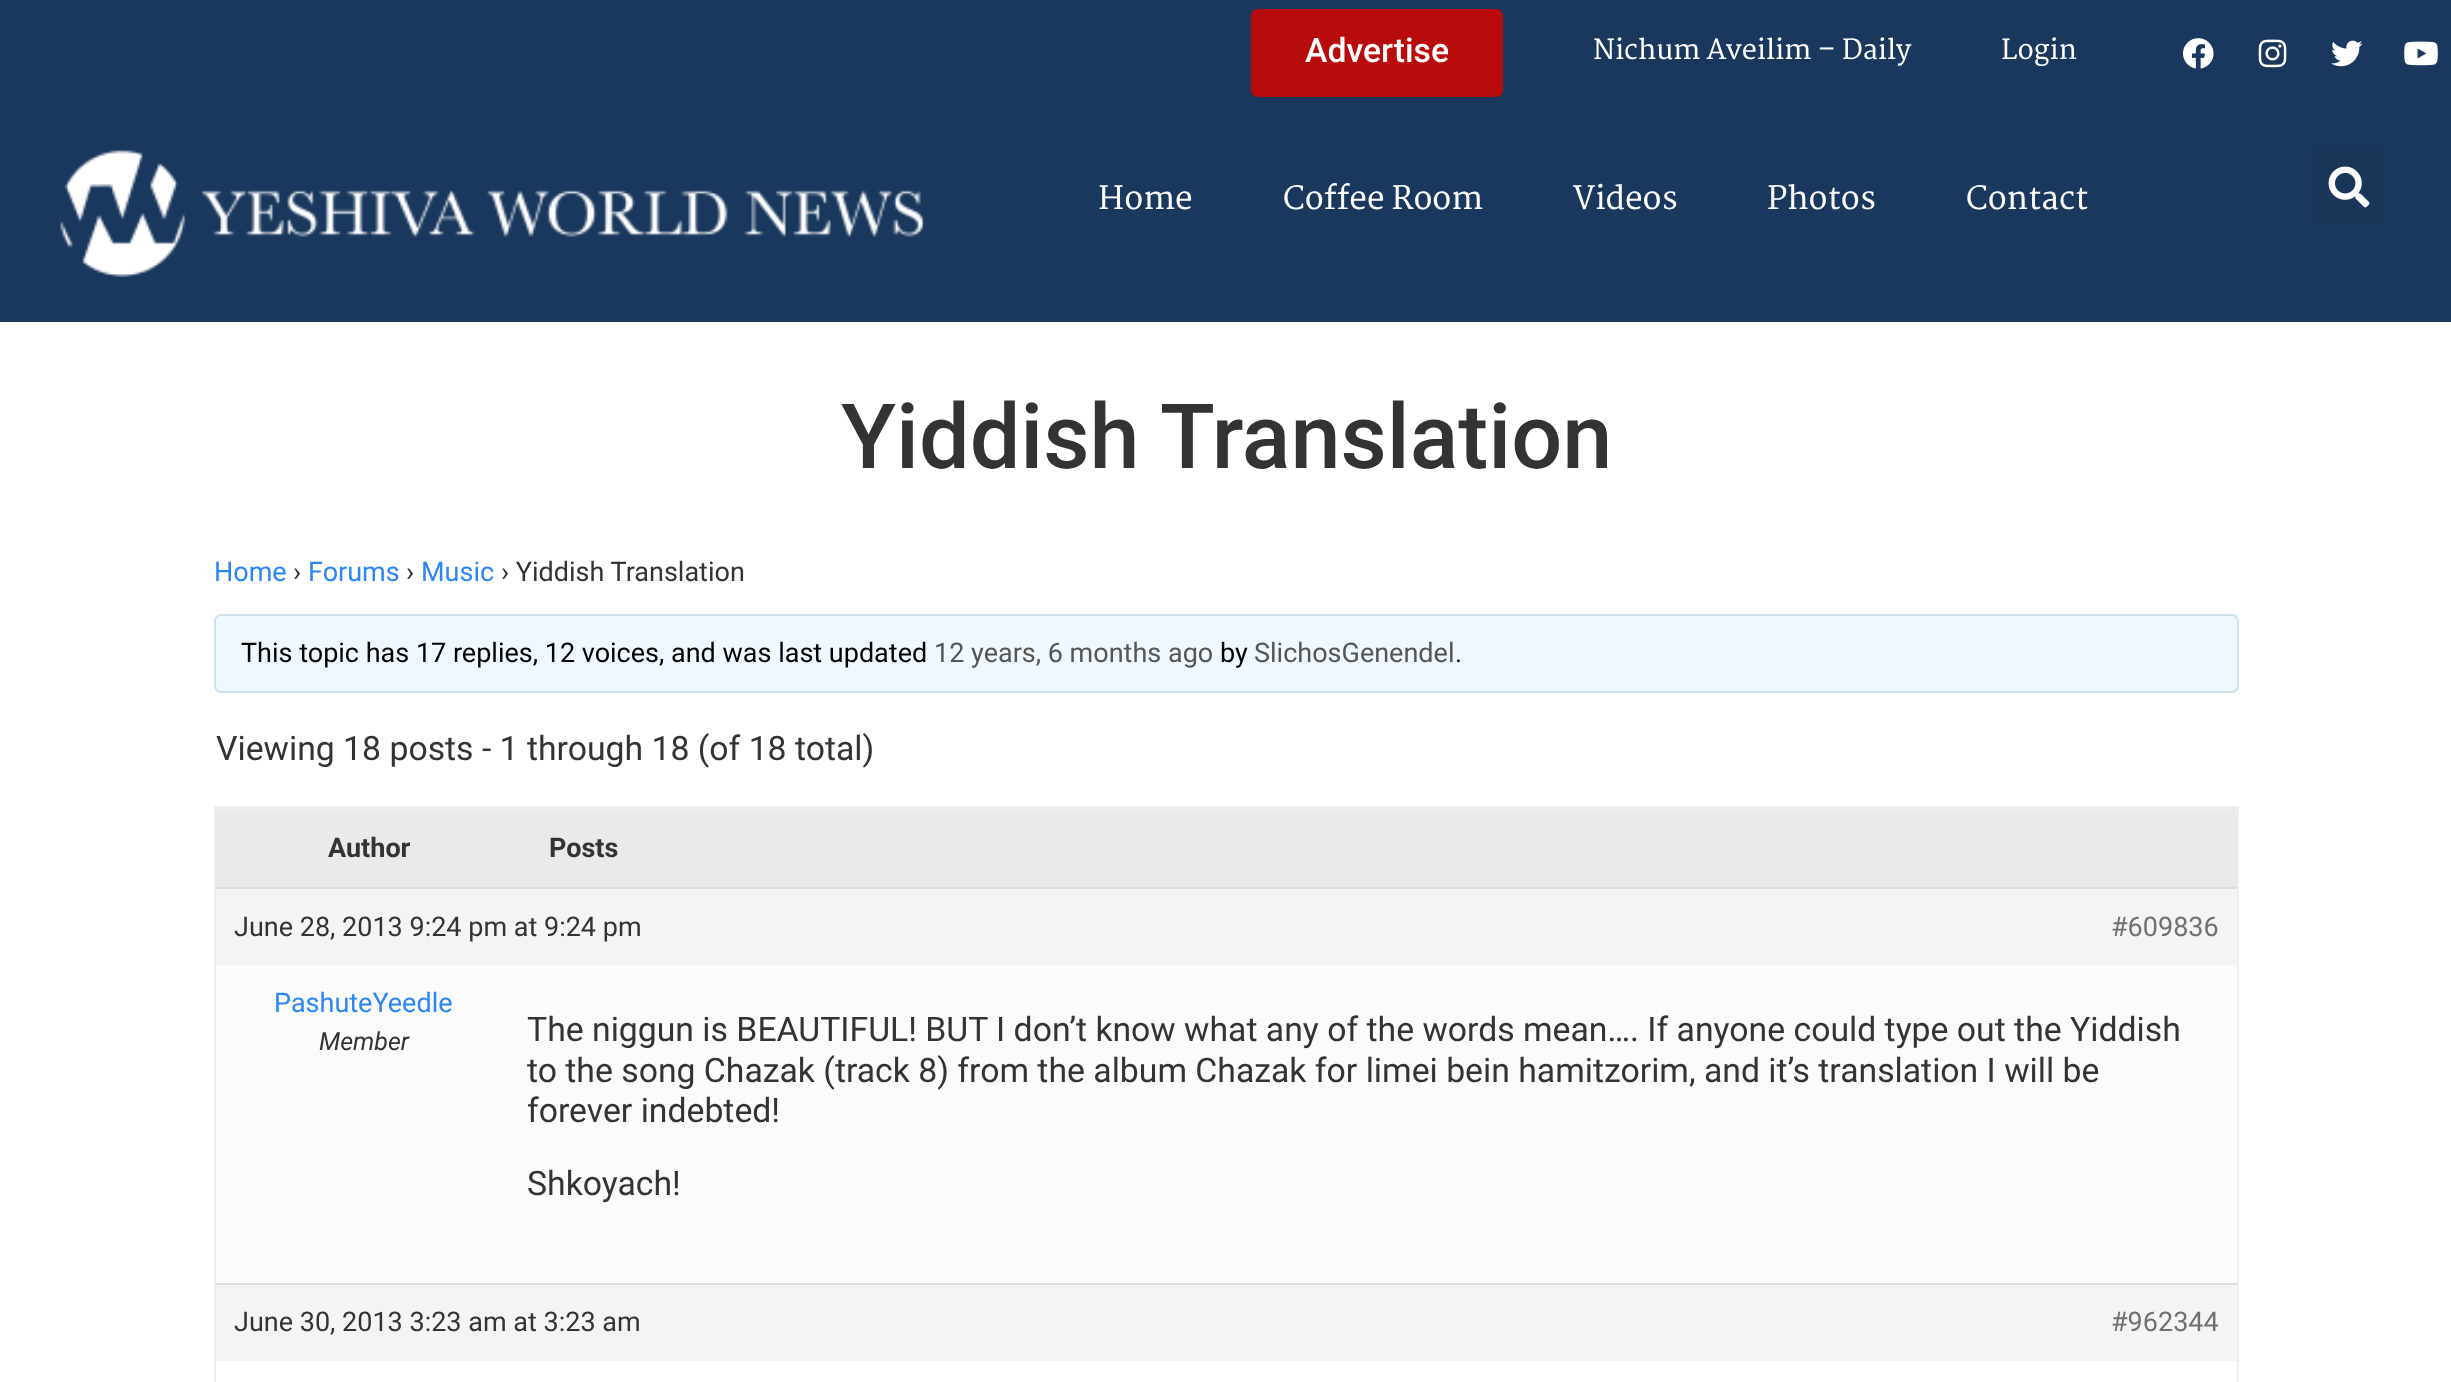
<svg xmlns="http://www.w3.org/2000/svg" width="2451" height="1382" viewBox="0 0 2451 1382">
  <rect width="100%" height="100%" fill="#fff"/>
  <path d="M0 0h2451v322H0z" fill="#1a385d"/>
  <rect x="1251" y="9" width="252" height="88" rx="7" fill="#b80b0b"/>
  <image x="2183" y="38" width="31" height="31" href="img/1.png"/>
  <image x="2258" y="39" width="29" height="29" href="img/2.png"/>
  <image x="2331" y="40" width="32" height="27" href="img/3.png"/>
  <image x="2404" y="41" width="34" height="25" href="img/4.png"/>
  <image x="59" y="150" width="866" height="127" href="img/5.png"/>
  <rect x="2311" y="149" width="74" height="74" rx="7" fill="#193558"/>
  <image x="2328" y="166" width="42" height="42" href="img/6.png"/>
  <rect x="215" y="615" width="2023" height="77" rx="6" fill="#f0f8ff" stroke="#cee1ef" stroke-width="2"/>
  <path d="M215 807h2023v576H215z" fill="none" stroke="#eee" stroke-width="2"/>
  <path d="M216 810h2021v77H216z" fill="#eaeaea"/>
  <path d="M216 808h2021v2H216z" fill="#eee"/>
  <path d="M216 889h2021v76H216z" fill="#f4f4f4"/>
  <path d="M216 887h2021v2H216z" fill="#ddd"/>
  <path d="M216 965h2021v318H216z" fill="#fbfbfb"/>
  <path d="M216 1285h2021v76H216z" fill="#f4f4f4"/>
  <path d="M216 1283h2021v2H216z" fill="#ddd"/>
  <text x="1305" y="62" font-family="Roboto" font-size="33.75" font-weight="500" fill="#fff">Advertise</text>
  <g font-family="Martel" font-size="27" font-weight="600" fill="#fff">
    <text x="1593" y="59">Nichum Aveilim – Daily</text>
    <text x="2001" y="59">Login</text>
  </g>
  <g font-family="Martel" font-size="31.5" font-weight="600" fill="#fff">
    <text x="1098" y="209">Home</text>
    <text x="1283" y="209">Coffee Room</text>
    <text x="1573" y="209">Videos</text>
    <text x="1767" y="209">Photos</text>
    <text x="1966" y="209">Contact</text>
  </g>
  <text x="841" y="468" font-family="Roboto" font-size="90" font-weight="500" fill="#333">Yiddish Translation</text>
  <text x="214" y="581" font-family="Roboto" font-size="27" fill="#2b85f4">Home</text>
  <text x="293" y="581" font-family="Roboto" font-size="27" fill="#333">›</text>
  <text x="308" y="581" font-family="Roboto" font-size="27" fill="#2b85f4">Forums</text>
  <text x="406" y="581" font-family="Roboto" font-size="27" fill="#333">›</text>
  <text x="421" y="581" font-family="Roboto" font-size="27" fill="#2b85f4">Music</text>
  <text x="501" y="581" font-family="Roboto" font-size="27" fill="#333">› Yiddish Translation</text>
  <text x="241" y="662" font-family="Roboto" font-size="27" fill="#000">This topic has 17 replies, 12 voices, and was last updated</text>
  <text x="934" y="662" font-family="Roboto" font-size="27" fill="#555">12 years, 6 months ago</text>
  <text x="1220" y="662" font-family="Roboto" font-size="27" fill="#000">by</text>
  <text x="1254" y="662" font-family="Roboto" font-size="27" fill="#555">SlichosGenendel</text>
  <text x="1455" y="662" font-family="Roboto" font-size="27" fill="#000">.</text>
  <text x="216" y="760" font-family="Roboto" font-size="33.75" fill="#333">Viewing 18 posts - 1 through 18 (of 18 total)</text>
  <g font-family="Roboto" font-size="27" font-weight="bold" fill="#333">
    <text x="328" y="857">Author</text>
    <text x="549" y="857">Posts</text>
  </g>
  <text x="234" y="936" font-family="Roboto" font-size="27" fill="#333">June 28, 2013 9:24 pm at 9:24 pm</text>
  <text x="2111" y="936" font-family="Roboto" font-size="27" fill="#707070">#609836</text>
  <text x="274" y="1012" font-family="Roboto" font-size="27" fill="#2b85f4">PashuteYeedle</text>
  <text x="319" y="1050" font-family="Roboto" font-size="25" font-style="italic" fill="#333">Member</text>
  <g font-family="Roboto" font-size="33.75" fill="#333">
    <text x="527" y="1041">The niggun is BEAUTIFUL! BUT I don’t know what any of the words mean…. If anyone could type out the Yiddish</text>
    <text x="527" y="1082">to the song Chazak (track 8) from the album Chazak for limei bein hamitzorim, and it’s translation I will be</text>
    <text x="527" y="1122">forever indebted!</text>
    <text x="527" y="1195">Shkoyach!</text>
  </g>
  <text x="234" y="1331" font-family="Roboto" font-size="27" fill="#333">June 30, 2013 3:23 am at 3:23 am</text>
  <text x="2111" y="1331" font-family="Roboto" font-size="27" fill="#707070">#962344</text>
</svg>
